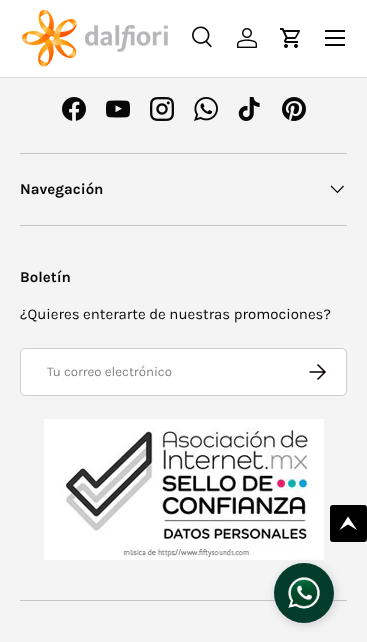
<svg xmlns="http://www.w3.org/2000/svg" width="367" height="642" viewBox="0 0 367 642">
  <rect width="100%" height="100%" fill="#f4f4f4"/>
  <path d="M0 0h367v77H0z" fill="#fff"/>
  <path d="M0 77h367v1H0z" fill="#dadada"/>
  <image x="21" y="9" width="147" height="58" href="img/1.png"/>
  <image x="192" y="26" width="20" height="22" href="img/2.png"/>
  <image x="237" y="28" width="20" height="20" href="img/3.png"/>
  <image x="280" y="28" width="20" height="20" href="img/4.png"/>
  <path d="M325 30h20v2H325z" fill="#070707"/>
  <path d="M325 44h20v2H325z" fill="#070707"/>
  <path d="M325 37h20v2H325z" fill="#070707"/>
  <image x="62" y="97" width="24" height="24" href="img/5.png"/>
  <image x="106" y="100" width="24" height="18" href="img/6.png"/>
  <image x="150" y="97" width="24" height="24" href="img/7.png"/>
  <image x="194" y="97" width="24" height="24" href="img/8.png"/>
  <image x="238" y="97" width="22" height="24" href="img/9.png"/>
  <image x="282" y="97" width="24" height="24" href="img/10.png"/>
  <path d="M20 153h327v1H20z" fill="#c5c5c5"/>
  <path d="M20 225h327v1H20z" fill="#c5c5c5"/>
  <path d="M343.5 186L337.5 192.5L331 186" fill="none" stroke="#070707" stroke-width="1.2"/>
  <rect x="20" y="348" width="327" height="48" rx="5" fill="#fff"/>
  <rect x="20.5" y="348.5" width="326" height="47" rx="4.5" fill="none" stroke="#07070733"/>
  <path d="M309.5 372H324.5M317.5 364.5L325 372L317.5 379.5" fill="none" stroke="#090302" stroke-width="1.5"/>
  <image x="44" y="419" width="280" height="141" href="img/11.png"/>
  <path d="M20 600h327v1H20z" fill="#c5c5c5"/>
  <rect x="330" y="505" width="37" height="37" rx="3" fill="#000"/>
  <path d="M339.5 530L348 516.5L357 530L348 524.5Z" fill="#fff"/>
  <rect x="274" y="563" width="64" height="64" rx="32" fill="#00000012" filter="blur(4.5px)"/>
  <rect x="274" y="565" width="60" height="60" rx="30" fill="#0000000d" filter="blur(5px)"/>
  <image x="274" y="563" width="60" height="60" href="img/12.png"/>
  <g font-family="Karla" font-size="15" font-weight="bold" fill="#070707">
    <text x="20" y="194">Navegación</text>
    <text x="20" y="282">Boletín</text>
  </g>
  <text x="20" y="319" font-family="Karla" font-size="15" fill="#070707">¿Quieres enterarte de nuestras promociones?</text>
  <text x="47" y="376" font-family="Karla" font-size="13.25" fill="#848181">Tu correo electrónico</text>
</svg>
